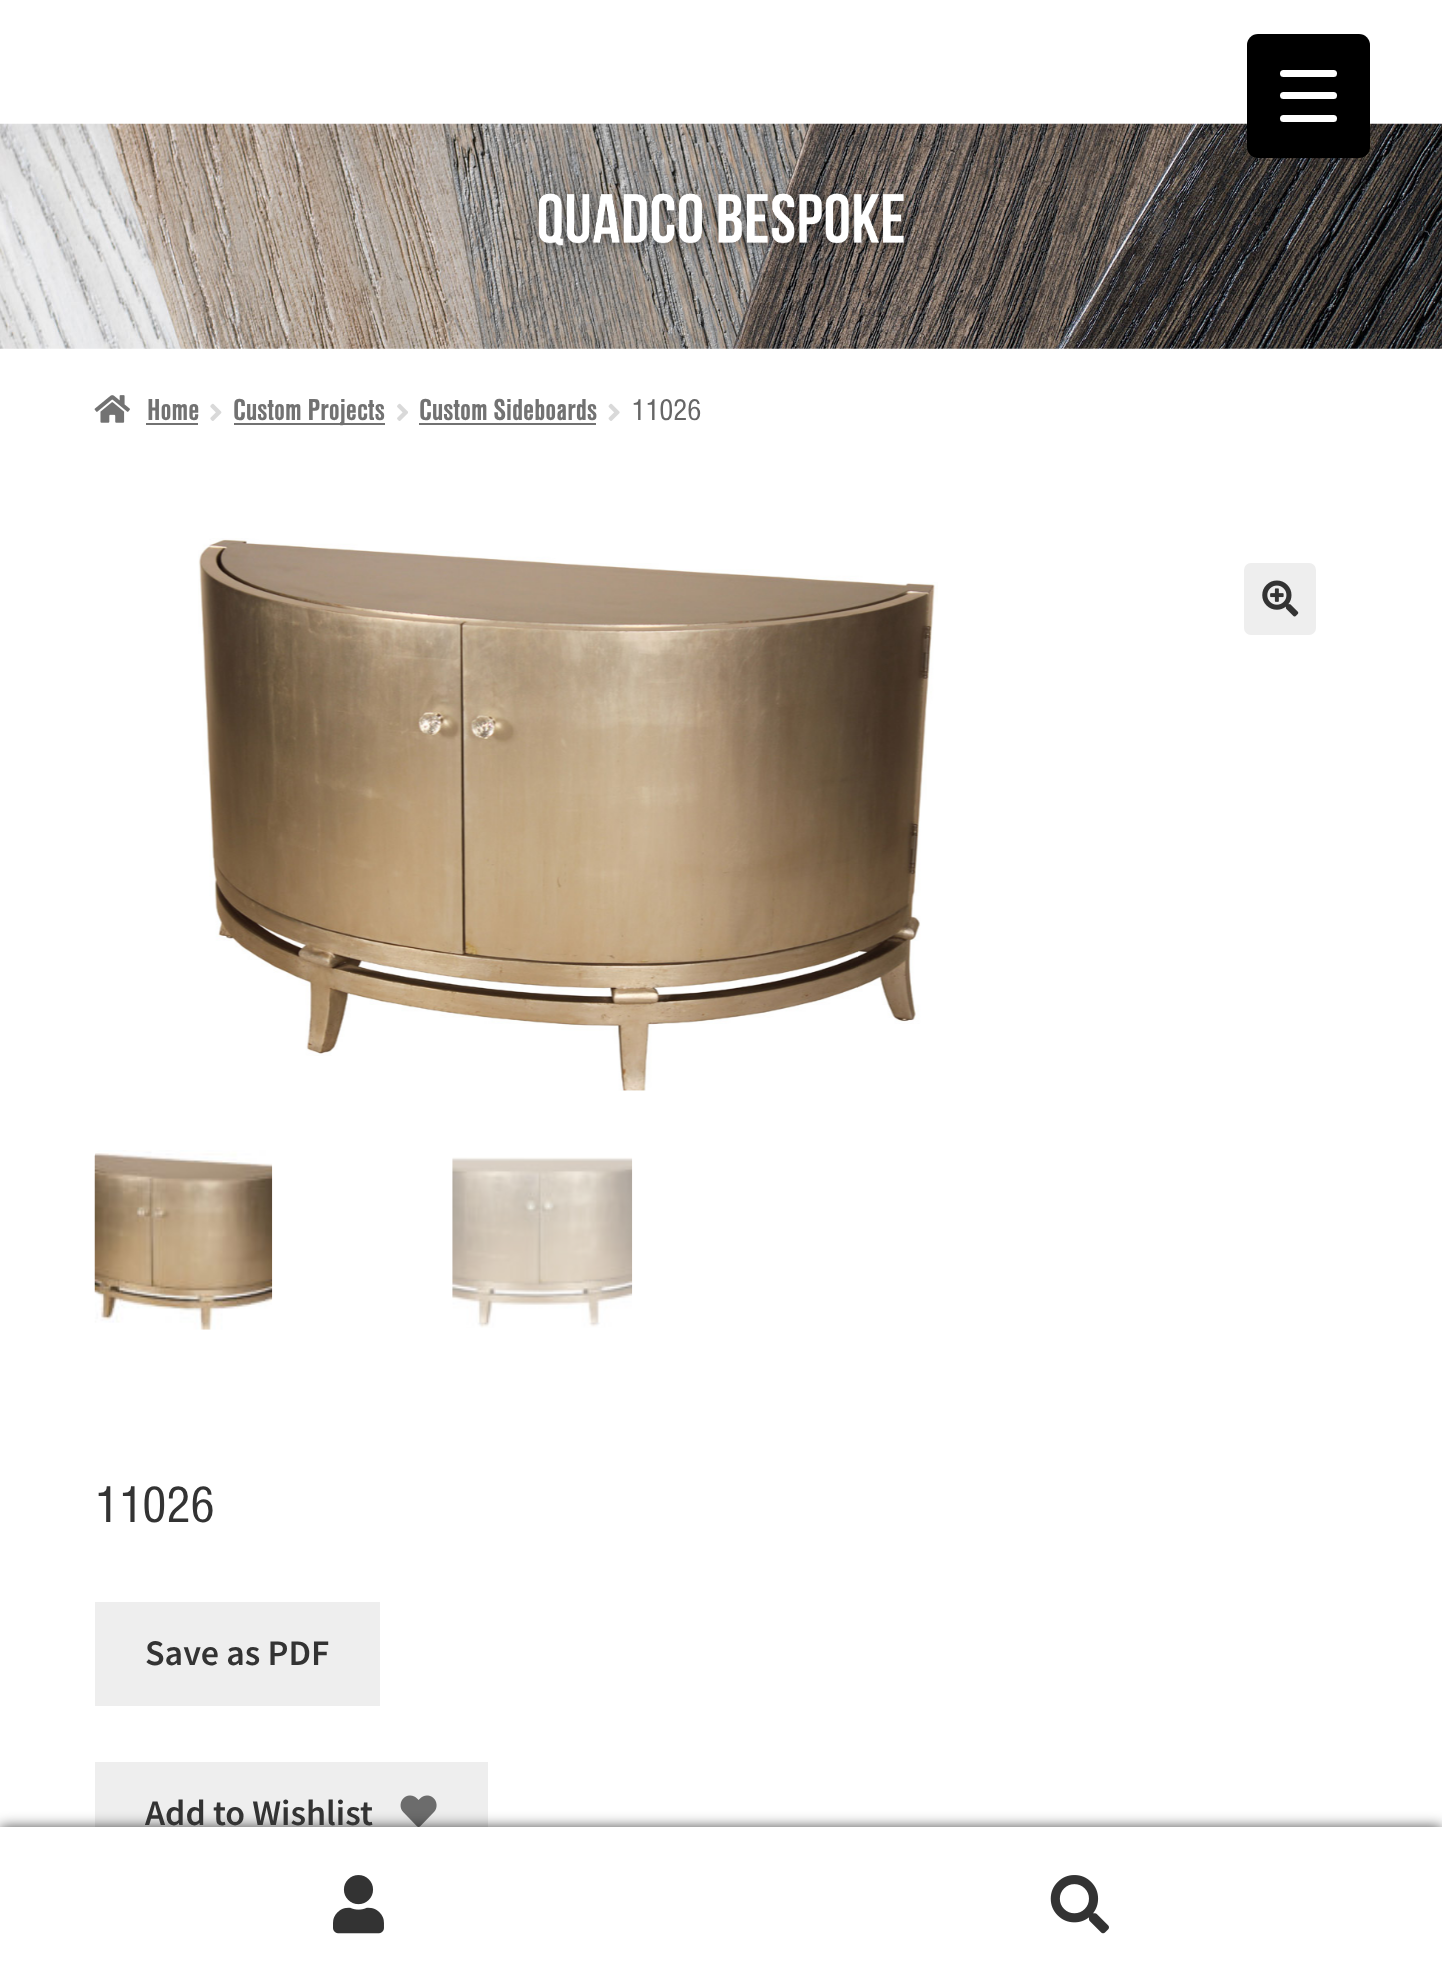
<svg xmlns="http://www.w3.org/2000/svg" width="1442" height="1982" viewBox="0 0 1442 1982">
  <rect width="100%" height="100%" fill="#fff"/>
  <image x="0" y="123" width="1442" height="226" href="img/1.png"/>
  <rect x="1247" y="34" width="123" height="124" rx="11" fill="#000"/>
  <rect x="1280" y="92" width="57" height="7" rx="3.5" fill="#fff"/>
  <rect x="1280" y="70" width="57" height="7" rx="3.5" fill="#fff"/>
  <rect x="1280" y="115" width="57" height="7" rx="3.5" fill="#fff"/>
  <image x="533" y="188" width="376" height="67" href="img/2.png"/>
  <image x="94" y="395" width="36" height="28" href="img/3.png"/>
  <path d="M146 423h52v2H146z" fill="#727272"/>
  <image x="210" y="403" width="12" height="18" href="img/4.png"/>
  <path d="M234 423h151v2H234z" fill="#727272"/>
  <image x="397" y="403" width="11" height="18" href="img/5.png"/>
  <path d="M419 423h177v2H419z" fill="#727272"/>
  <image x="608" y="403" width="12" height="18" href="img/6.png"/>
  <image x="198" y="538" width="740" height="553" href="img/7.png"/>
  <rect x="1244" y="563" width="72" height="72" rx="7" fill="#eee"/>
  <image x="1262" y="580" width="37" height="37" href="img/8.png"/>
  <image x="94" y="1150" width="179" height="180" href="img/9.png"/>
  <image x="452" y="1157" width="181" height="171" href="img/10.png"/>
  <path d="M95 1602h285v104H95z" fill="#eee"/>
  <path d="M95 1762h393v65H95z" fill="#eee"/>
  <image x="400" y="1795" width="37" height="32" href="img/11.png"/>
  <path d="M0 1827h1442v155H0z" fill="#000000b3" filter="blur(7px)"/>
  <path d="M0 1827h1442v2H0z" fill="#fff"/>
  <path d="M0 1829h1442v153H0z" fill="#fff"/>
  <image x="333" y="1875" width="51" height="59" href="img/12.png"/>
  <image x="1050" y="1875" width="59" height="59" href="img/13.png"/>
  <g font-family="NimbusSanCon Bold" font-size="31.5" font-weight="bold" fill="#727272">
    <text x="147" y="420">Home</text>
    <text x="233" y="420">Custom Projects</text>
    <text x="419" y="420">Custom Sideboards</text>
  </g>
  <text x="631" y="420" font-family="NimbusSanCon" font-size="31.5" fill="#666">11026</text>
  <text x="94" y="1522" font-family="NimbusSanCon" font-size="54" fill="#333">11026</text>
  <g font-family="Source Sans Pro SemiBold" font-size="36" font-weight="600" fill="#333">
    <text x="145" y="1665">Save as PDF</text>
    <text x="145" y="1825">Add to Wishlist</text>
  </g>
</svg>
